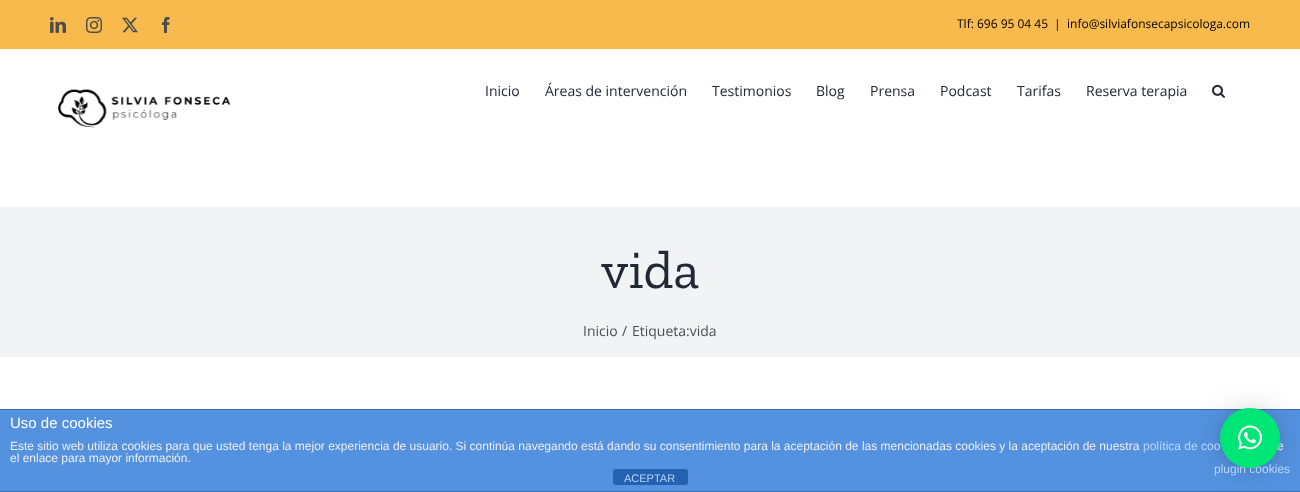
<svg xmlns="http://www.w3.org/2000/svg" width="1300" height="492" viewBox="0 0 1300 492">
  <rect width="100%" height="100%" fill="#fff"/>
  <path d="M0 0h1300v49H0z" fill="#f9ba4d"/>
  <image x="50" y="17" width="16" height="16" href="img/1.png"/>
  <image x="86" y="17" width="16" height="16" href="img/2.png"/>
  <image x="122" y="17" width="16" height="16" href="img/3.png"/>
  <image x="162" y="17" width="8" height="16" href="img/4.png"/>
  <image x="58" y="89" width="173" height="39" href="img/5.png"/>
  <image x="1212" y="84" width="13" height="14" href="img/6.png"/>
  <path d="M0 207h1300v150H0z" fill="#f2f3f5"/>
  <path d="M0 410h1300v81H0z" fill="#5492e0"/>
  <path d="M0 409h1300v1H0z" fill="#3f6da7"/>
  <path d="M0 491h1300v1H0z" fill="#3f6da7"/>
  <rect x="1220" y="410" width="60" height="60" rx="30" fill="#00000029" filter="blur(16px)"/>
  <rect x="1220" y="409" width="60" height="60" rx="30" fill="#0000000f" filter="blur(3px)"/>
  <rect x="613" y="469" width="75" height="16" rx="3" fill="#2462b0"/>
  <g font-family="Open Sans" font-size="12" fill="#000">
    <text x="957" y="28">Tlf: 696 95 04 45</text>
    <text x="1054" y="28">|</text>
    <text x="1067" y="28">info@silviafonsecapsicologa.com</text>
  </g>
  <g font-family="Open Sans" font-size="14" fill="#212934">
    <text x="485" y="96">Inicio</text>
    <text x="545" y="96">Áreas de intervención</text>
    <text x="712" y="96">Testimonios</text>
    <text x="816" y="96">Blog</text>
    <text x="870" y="96">Prensa</text>
    <text x="940" y="96">Podcast</text>
    <text x="1017" y="96">Tarifas</text>
    <text x="1086" y="96">Reserva terapia</text>
  </g>
  <text x="601" y="288" font-family="Zilla Slab" font-size="54" fill="#212934">vida</text>
  <g font-family="Open Sans" font-size="14" fill="#4a4e57">
    <text x="583" y="336">Inicio</text>
    <text x="622" y="336">/</text>
    <text x="632" y="336">Etiqueta:vida</text>
  </g>
  <text x="10" y="428" font-family="Liberation Sans" font-size="15" fill="#fff">Uso de cookies</text>
  <text x="10" y="450" font-family="Liberation Sans" font-size="12" fill="#eee">Este sitio web utiliza cookies para que usted tenga la mejor experiencia de usuario. Si continúa navegando está dando su consentimiento para la aceptación de las mencionadas cookies y la aceptación de nuestra</text>
  <text x="1143" y="450" font-family="Liberation Sans" font-size="12" fill="#b7d7ff">política de coo</text>
  <g font-family="Liberation Sans" font-size="12" fill="#eee">
    <text x="1277" y="450">e</text>
    <text x="10" y="462">el enlace para mayor información.</text>
  </g>
  <text x="1214" y="473" font-family="Liberation Sans" font-size="12" fill="#b7d7ff">plugin cookies</text>
  <circle cx="1250" cy="438" r="30" fill="#00e676"/>
  <image x="1238" y="425" width="24" height="25" href="img/7.png"/>
  <text x="624" y="482" font-family="Liberation Sans" font-size="11" fill="#b7d7ff">ACEPTAR</text>
</svg>
